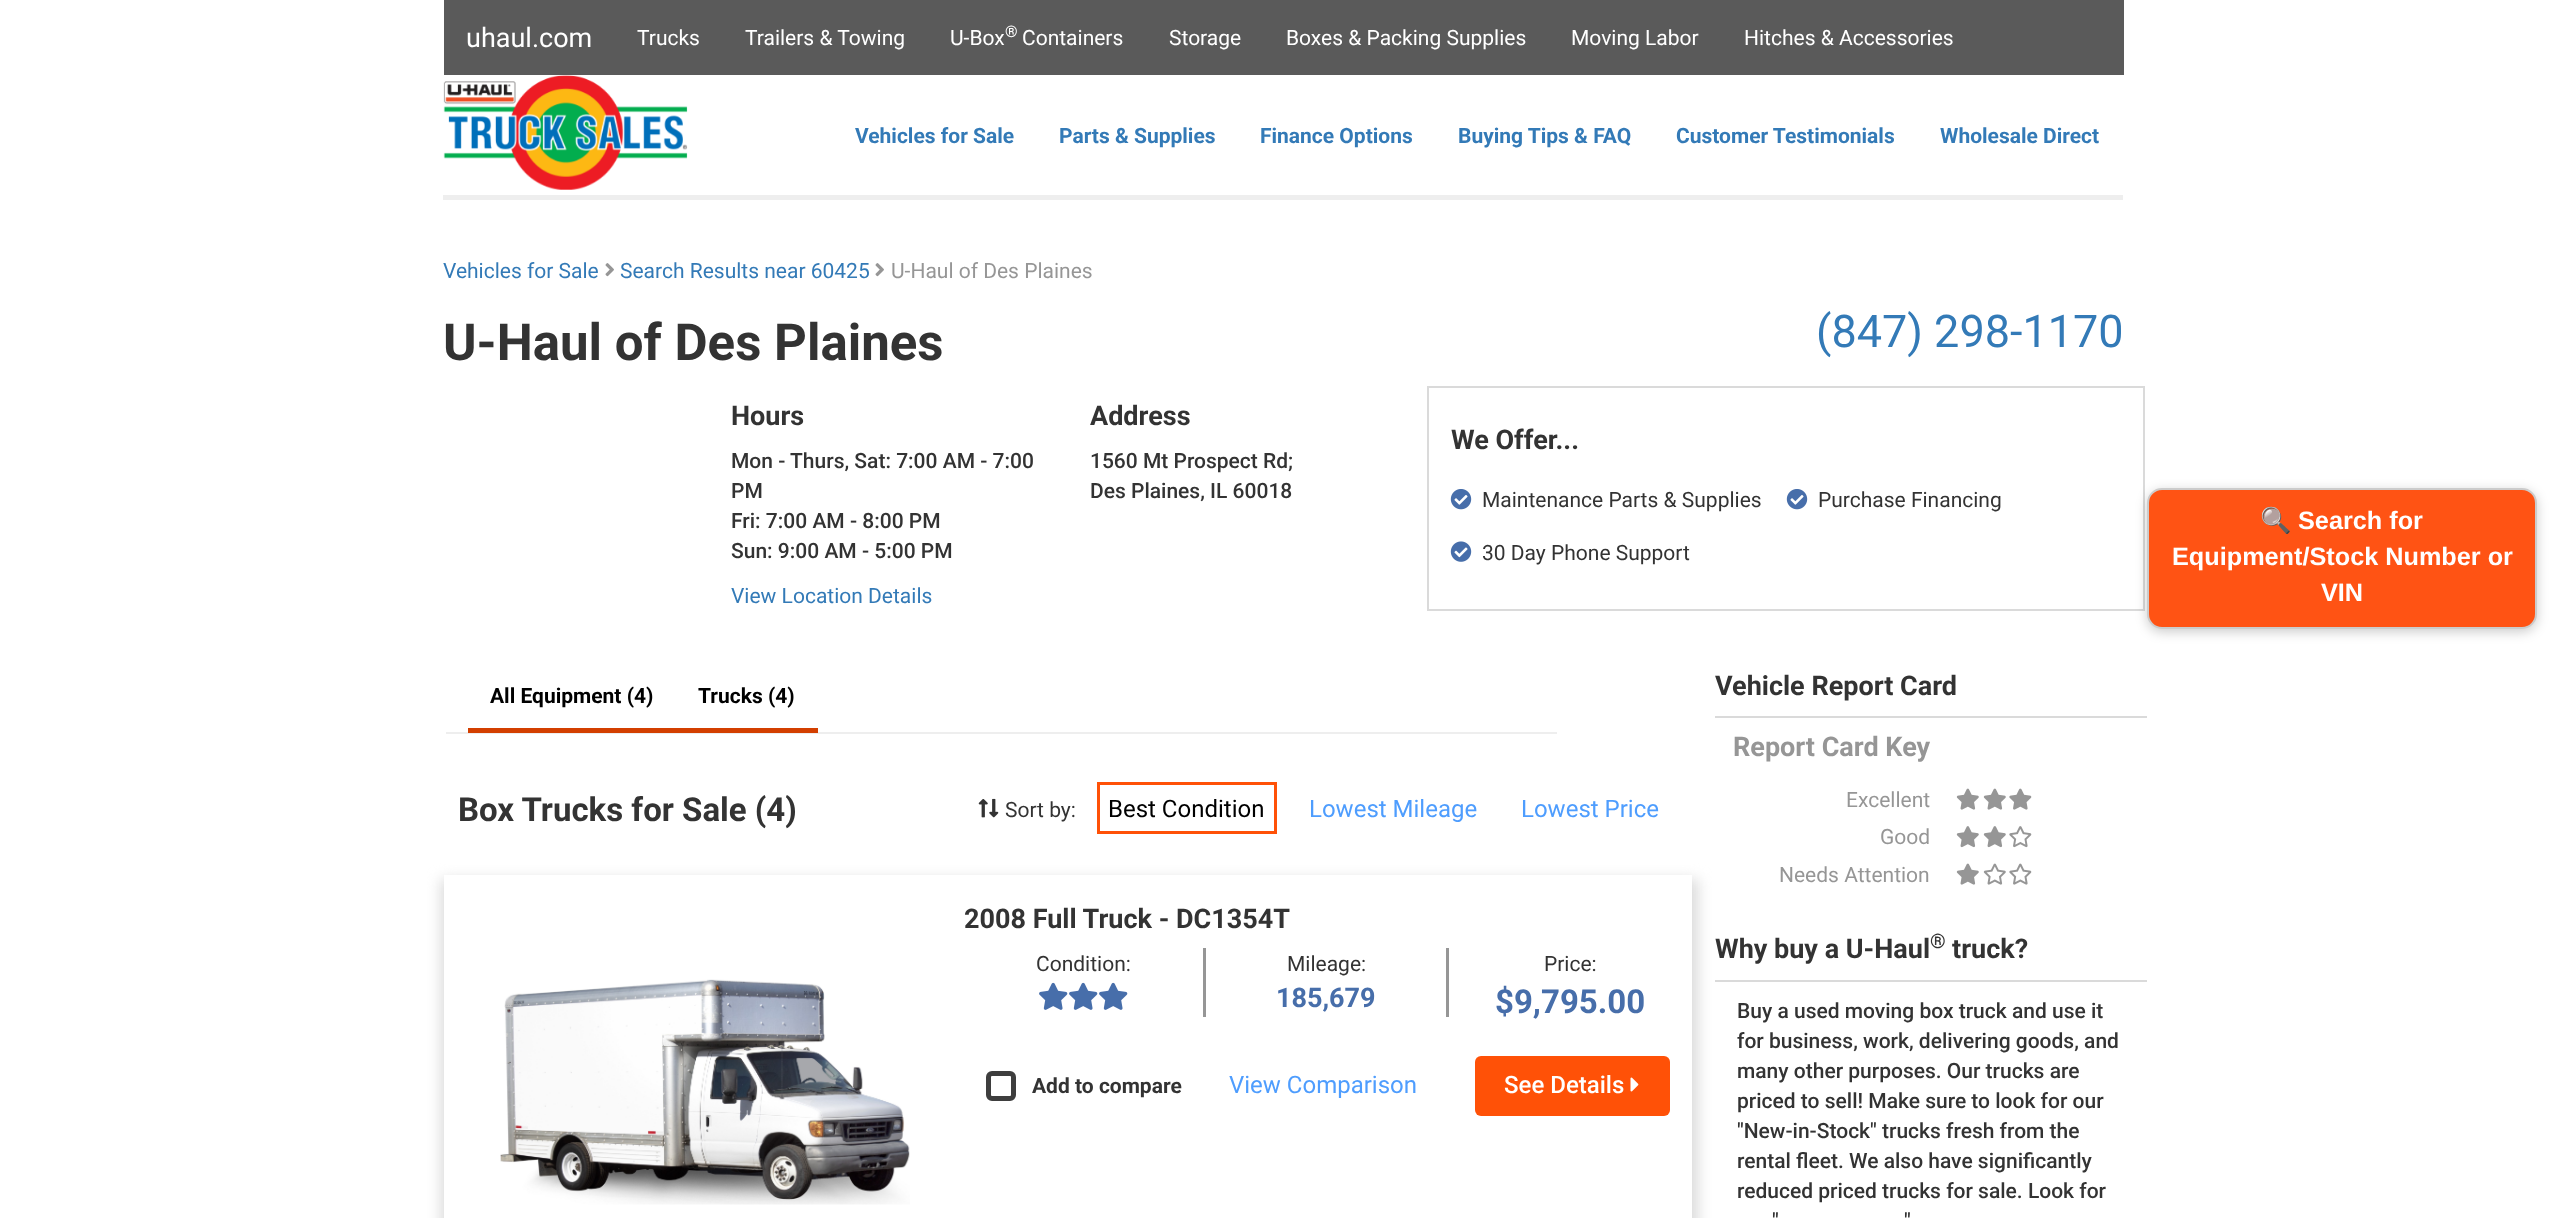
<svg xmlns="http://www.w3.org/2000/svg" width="2566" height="1218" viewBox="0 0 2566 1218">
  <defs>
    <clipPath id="clip1"><path d="M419 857H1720V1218H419ZM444 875H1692V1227H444Z" clip-rule="evenodd"/></clipPath>
  </defs>
  <rect width="100%" height="100%" fill="#fff"/>
  <path d="M444 0h1680v75H444z" fill="#5a5a5a"/>
  <image x="443" y="75" width="245" height="115" href="img/1.png"/>
  <path d="M443 195h1680v5H443z" fill="#eee"/>
  <image x="605" y="263" width="9" height="14" href="img/2.png"/>
  <image x="875" y="263" width="9" height="14" href="img/2.png"/>
  <path d="M1428 387h716v223H1428z" fill="none" stroke="#dadada" stroke-width="2"/>
  <image x="1450" y="489" width="22" height="21" href="img/3.png"/>
  <image x="1450" y="541" width="22" height="21" href="img/4.png"/>
  <image x="1786" y="489" width="22" height="21" href="img/3.png"/>
  <path d="M446 732h1111v2H446z" fill="#eee"/>
  <path d="M468 728h350v5H468z" fill="#d33f00"/>
  <image x="978" y="799" width="10" height="19" href="img/5.png"/>
  <image x="989" y="798" width="10" height="20" href="img/6.png"/>
  <path d="M1098.5 783.5h177v49H1098.5z" fill="none" stroke="#ff5107" stroke-width="3"/>
  <g clip-path="url(#clip1)">
    <path d="M441 879h1257v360H441z" fill="#dadada" filter="blur(7px)"/>
  </g>
  <image x="500" y="979" width="410" height="226" href="img/7.png"/>
  <path d="M1203 948h3v69H1203z" fill="#969696"/>
  <image x="1039" y="982" width="29" height="28" href="img/8.png"/>
  <image x="1069" y="982" width="29" height="28" href="img/8.png"/>
  <image x="1099" y="982" width="29" height="28" href="img/8.png"/>
  <path d="M1446 948h3v69H1446z" fill="#969696"/>
  <rect x="988.5" y="1073.5" width="25" height="25" rx="3.5" fill="none" stroke="#3e3e3e" stroke-width="5"/>
  <rect x="1475" y="1056" width="195" height="60" rx="6" fill="#ff5107"/>
  <image x="1630" y="1077" width="9" height="15" href="img/9.png"/>
  <path d="M1715 716h432v2H1715z" fill="#dadada"/>
  <image x="1956" y="788" width="23" height="22" href="img/10.png"/>
  <image x="1983" y="788" width="23" height="22" href="img/10.png"/>
  <image x="2009" y="788" width="23" height="22" href="img/11.png"/>
  <image x="1956" y="826" width="23" height="22" href="img/12.png"/>
  <image x="1983" y="826" width="23" height="22" href="img/12.png"/>
  <image x="2009" y="826" width="23" height="22" href="img/13.png"/>
  <image x="1956" y="863" width="23" height="22" href="img/10.png"/>
  <image x="1983" y="863" width="23" height="22" href="img/14.png"/>
  <image x="2009" y="863" width="23" height="22" href="img/15.png"/>
  <path d="M1715 980h432v2H1715z" fill="#dadada"/>
  <rect x="2147" y="491" width="390" height="141" rx="15" fill="#00000033" filter="blur(6px)"/>
  <rect x="2148" y="489" width="388" height="139" rx="14" fill="#ff5314" stroke="#ccc" stroke-width="2"/>
  <text x="466" y="47" font-family="Roboto" font-size="27" fill="#fff">uhaul.com</text>
  <g font-family="Roboto" font-size="21" fill="#fff">
    <text x="637" y="45">Trucks</text>
    <text x="745" y="45">Trailers &amp; Towing</text>
    <text x="950" y="45">U-Box</text>
  </g>
  <text x="1005" y="37" font-family="Roboto" font-size="16" fill="#fff">®</text>
  <g font-family="Roboto" font-size="21" fill="#fff">
    <text x="1022" y="45">Containers</text>
    <text x="1169" y="45">Storage</text>
    <text x="1286" y="45">Boxes &amp; Packing Supplies</text>
    <text x="1571" y="45">Moving Labor</text>
    <text x="1744" y="45">Hitches &amp; Accessories</text>
  </g>
  <g font-family="Roboto" font-size="21" font-weight="bold" fill="#337ab7">
    <text x="855" y="143">Vehicles for Sale</text>
    <text x="1059" y="143">Parts &amp; Supplies</text>
    <text x="1260" y="143">Finance Options</text>
    <text x="1458" y="143">Buying Tips &amp; FAQ</text>
    <text x="1676" y="143">Customer Testimonials</text>
    <text x="1940" y="143">Wholesale Direct</text>
  </g>
  <g font-family="Roboto" font-size="21" fill="#337ab7">
    <text x="443" y="278">Vehicles for Sale</text>
    <text x="620" y="278">Search Results near 60425</text>
  </g>
  <text x="891" y="278" font-family="Roboto" font-size="21" fill="#969696">U-Haul of Des Plaines</text>
  <text x="443" y="360" font-family="Roboto" font-size="51" font-weight="bold" fill="#333">U-Haul of Des Plaines</text>
  <text x="1816" y="347" font-family="Roboto" font-size="45" fill="#337ab7">(847) 298-1170</text>
  <text x="731" y="425" font-family="Roboto" font-size="27" font-weight="bold" fill="#333">Hours</text>
  <g font-family="Roboto" font-size="21" font-weight="500" fill="#333">
    <text x="731" y="468">Mon - Thurs, Sat: 7:00 AM - 7:00</text>
    <text x="731" y="498">PM</text>
    <text x="731" y="528">Fri: 7:00 AM - 8:00 PM</text>
    <text x="731" y="558">Sun: 9:00 AM - 5:00 PM</text>
  </g>
  <text x="1090" y="425" font-family="Roboto" font-size="27" font-weight="bold" fill="#333">Address</text>
  <g font-family="Roboto" font-size="21" font-weight="500" fill="#333">
    <text x="1090" y="468">1560 Mt Prospect Rd;</text>
    <text x="1090" y="498">Des Plaines, IL 60018</text>
  </g>
  <text x="731" y="603" font-family="Roboto" font-size="21" fill="#337ab7">View Location Details</text>
  <text x="1451" y="449" font-family="Roboto" font-size="27" font-weight="bold" fill="#333">We Offer...</text>
  <g font-family="Roboto" font-size="21" fill="#333">
    <text x="1482" y="507">Maintenance Parts &amp; Supplies</text>
    <text x="1482" y="560">30 Day Phone Support</text>
    <text x="1818" y="507">Purchase Financing</text>
  </g>
  <g font-family="Roboto" font-size="21" font-weight="bold" fill="#000">
    <text x="490" y="703">All Equipment (4)</text>
    <text x="698" y="703">Trucks (4)</text>
  </g>
  <text x="458" y="821" font-family="Roboto" font-size="33" font-weight="bold" fill="#333">Box Trucks for Sale (4)</text>
  <text x="1005" y="817" font-family="Roboto" font-size="21" fill="#333">Sort by:</text>
  <text x="1108" y="817" font-family="Roboto" font-size="24" fill="#000">Best Condition</text>
  <g font-family="Roboto" font-size="24" fill="#4e9dfe">
    <text x="1309" y="817">Lowest Mileage</text>
    <text x="1521" y="817">Lowest Price</text>
  </g>
  <text x="964" y="928" font-family="Roboto" font-size="27" font-weight="bold" fill="#333">2008 Full Truck - DC1354T</text>
  <g font-family="Roboto" font-size="21" fill="#333">
    <text x="1036" y="971">Condition:</text>
    <text x="1287" y="971">Mileage:</text>
  </g>
  <text x="1276" y="1007" font-family="Roboto" font-size="27" font-weight="bold" fill="#476eaa">185,679</text>
  <text x="1544" y="971" font-family="Roboto" font-size="21" fill="#333">Price:</text>
  <text x="1495" y="1013" font-family="Roboto" font-size="33" font-weight="bold" fill="#476eaa">$9,795.00</text>
  <text x="1032" y="1093" font-family="Roboto" font-size="21" font-weight="bold" fill="#333">Add to compare</text>
  <text x="1229" y="1093" font-family="Roboto" font-size="24" fill="#4e9dfe">View Comparison</text>
  <text x="1504" y="1093" font-family="Roboto" font-size="24" font-weight="500" fill="#fff">See Details</text>
  <text x="1715" y="695" font-family="Roboto" font-size="27" font-weight="bold" fill="#333">Vehicle Report Card</text>
  <text x="1733" y="756" font-family="Roboto" font-size="27" font-weight="bold" fill="#969696">Report Card Key</text>
  <g font-family="Roboto" font-size="21" fill="#969696">
    <text x="1846" y="807">Excellent</text>
    <text x="1880" y="844">Good</text>
    <text x="1779" y="882">Needs Attention</text>
  </g>
  <text x="1715" y="958" font-family="Roboto" font-size="27" font-weight="bold" fill="#333">Why buy a U-Haul</text>
  <text x="1930" y="948" font-family="Roboto" font-size="20" font-weight="bold" fill="#333">®</text>
  <text x="1952" y="958" font-family="Roboto" font-size="27" font-weight="bold" fill="#333">truck?</text>
  <g font-family="Roboto" font-size="21" font-weight="500" fill="#333">
    <text x="1737" y="1018">Buy a used moving box truck and use it</text>
    <text x="1737" y="1048">for business, work, delivering goods, and</text>
    <text x="1737" y="1078">many other purposes. Our trucks are</text>
    <text x="1737" y="1108">priced to sell! Make sure to look for our</text>
    <text x="1737" y="1138">"New-in-Stock" trucks fresh from the</text>
    <text x="1737" y="1168">rental fleet. We also have significantly</text>
    <text x="1737" y="1198">reduced priced trucks for sale. Look for</text>
    <text x="1772" y="1228">"</text>
    <text x="1904" y="1228">"</text>
  </g>
  <text x="2260" y="529" font-family="Noto Color Emoji" font-size="25.25" font-weight="bold" fill="#fff">🔍</text>
  <g font-family="Liberation Sans" font-size="25.25" font-weight="bold" fill="#fff">
    <text x="2298" y="529">Search for</text>
    <text x="2172" y="565">Equipment/Stock Number or</text>
    <text x="2321" y="601">VIN</text>
  </g>
</svg>
